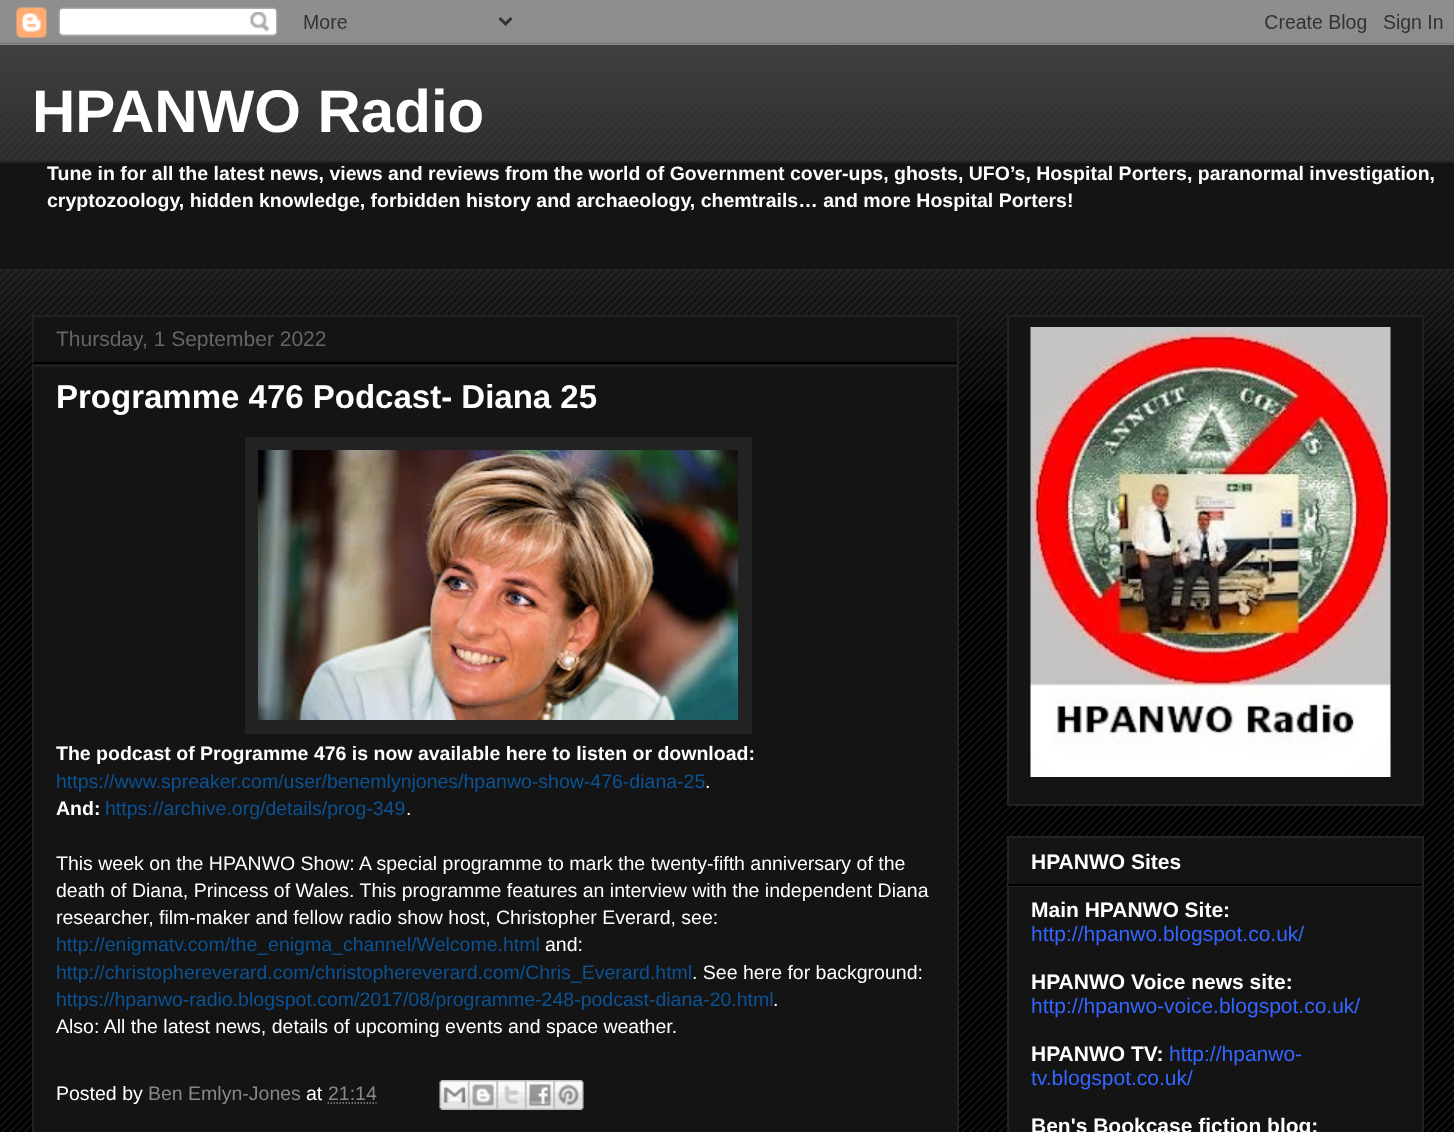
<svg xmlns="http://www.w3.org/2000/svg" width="1454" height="1132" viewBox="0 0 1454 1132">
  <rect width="100%" height="100%" fill="#000"/>
  <image x="0" y="20" width="1454" height="1112" href="img/1.png"/>
  <image x="0" y="0" width="1454" height="402" href="img/2.png"/>
  <image x="0" y="0" width="1454" height="45" href="img/3.png"/>
  <path d="M0 163h1454v106H0z" fill="#141414"/>
  <path d="M0 161h1454v2H0z" fill="#222"/>
  <path d="M0 269h1454v1H0z" fill="#222"/>
  <path d="M33 316h925v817H33z" fill="#141414" stroke="#222" stroke-width="2"/>
  <path d="M33 362h924v2H33z" fill="#000"/>
  <path d="M33 365h924v2H33z" fill="#222"/>
  <path d="M245 437h507v297H245z" fill="#222"/>
  <image x="258" y="450" width="480" height="270" href="img/4.png"/>
  <path d="M327.5 1103H376.5" fill="none" stroke="#888" stroke-width="1.5" stroke-dasharray="1.5 1.5"/>
  <image x="439" y="1080" width="29" height="30" href="img/5.png"/>
  <image x="468" y="1080" width="29" height="30" href="img/6.png"/>
  <image x="496" y="1080" width="29" height="30" href="img/7.png"/>
  <image x="525" y="1080" width="29" height="30" href="img/8.png"/>
  <image x="553" y="1080" width="31" height="30" href="img/9.png"/>
  <path d="M1008 316h415v489H1008z" fill="#141414" stroke="#222" stroke-width="2"/>
  <image x="1030" y="327" width="361" height="450" href="img/10.png"/>
  <path d="M1008 837h415v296H1008z" fill="#141414" stroke="#222" stroke-width="2"/>
  <path d="M1008 884h414v2H1008z" fill="#000"/>
  <path d="M1008 886h414v1H1008z" fill="#222"/>
  <text x="32" y="132" font-family="Liberation Sans" font-size="60" font-weight="bold" fill="#fff">HPANWO Radio</text>
  <g font-family="Liberation Sans" font-size="19.5" font-weight="bold" fill="#fff">
    <text x="47" y="180">Tune in for all the latest news, views and reviews from the world of Government cover-ups, ghosts, UFO’s, Hospital Porters, paranormal investigation,</text>
    <text x="47" y="207">cryptozoology, hidden knowledge, forbidden history and archaeology, chemtrails… and more Hospital Porters!</text>
  </g>
  <text x="56" y="346" font-family="Liberation Sans" font-size="21" fill="#666">Thursday, 1 September 2022</text>
  <text x="56" y="408" font-family="Liberation Sans" font-size="33" font-weight="bold" fill="#fff">Programme 476 Podcast- Diana 25</text>
  <text x="56" y="760" font-family="Liberation Sans" font-size="19.5" font-weight="bold" fill="#fff">The podcast of Programme 476 is now available here to listen or download:</text>
  <text x="56" y="788" font-family="Liberation Sans" font-size="19.5" fill="#0b5394">https://www.spreaker.com/user/benemlynjones/hpanwo-show-476-diana-25</text>
  <text x="705" y="788" font-family="Liberation Sans" font-size="19.5" fill="#fff">.</text>
  <text x="56" y="815" font-family="Liberation Sans" font-size="19.5" font-weight="bold" fill="#fff">And:</text>
  <text x="105" y="815" font-family="Liberation Sans" font-size="19.5" fill="#0b5394">https://archive.org/details/prog-349</text>
  <g font-family="Liberation Sans" font-size="19.5" fill="#fff">
    <text x="406" y="815">.</text>
    <text x="56" y="870">This week on the HPANWO Show: A special programme to mark the twenty-fifth anniversary of the</text>
    <text x="56" y="897">death of Diana, Princess of Wales. This programme features an interview with the independent Diana</text>
    <text x="56" y="924">researcher, film-maker and fellow radio show host, Christopher Everard, see:</text>
  </g>
  <text x="56" y="951" font-family="Liberation Sans" font-size="19.5" fill="#0b5394">http://enigmatv.com/the_enigma_channel/Welcome.html</text>
  <text x="545" y="951" font-family="Liberation Sans" font-size="19.5" fill="#fff">and:</text>
  <text x="56" y="979" font-family="Liberation Sans" font-size="19.5" fill="#0b5394">http://christophereverard.com/christophereverard.com/Chris_Everard.html</text>
  <text x="692" y="979" font-family="Liberation Sans" font-size="19.5" fill="#fff">. See here for background:</text>
  <text x="56" y="1006" font-family="Liberation Sans" font-size="19.5" fill="#0b5394">https://hpanwo-radio.blogspot.com/2017/08/programme-248-podcast-diana-20.html</text>
  <g font-family="Liberation Sans" font-size="19.5" fill="#fff">
    <text x="773" y="1006">.</text>
    <text x="56" y="1033">Also: All the latest news, details of upcoming events and space weather.</text>
    <text x="56" y="1100">Posted by</text>
  </g>
  <text x="148" y="1100" font-family="Liberation Sans" font-size="19.5" fill="#888">Ben Emlyn-Jones</text>
  <text x="306" y="1100" font-family="Liberation Sans" font-size="19.5" fill="#fff">at</text>
  <text x="328" y="1100" font-family="Liberation Sans" font-size="19.5" fill="#888">21:14</text>
  <g font-family="Liberation Sans" font-size="21" font-weight="bold" fill="#fff">
    <text x="1031" y="869">HPANWO Sites</text>
    <text x="1031" y="917">Main HPANWO Site:</text>
  </g>
  <text x="1031" y="941" font-family="Liberation Sans" font-size="21" fill="#36f">http://hpanwo.blogspot.co.uk/</text>
  <text x="1031" y="989" font-family="Liberation Sans" font-size="21" font-weight="bold" fill="#fff">HPANWO Voice news site:</text>
  <text x="1031" y="1013" font-family="Liberation Sans" font-size="21" fill="#36f">http://hpanwo-voice.blogspot.co.uk/</text>
  <text x="1031" y="1061" font-family="Liberation Sans" font-size="21" font-weight="bold" fill="#fff">HPANWO TV:</text>
  <g font-family="Liberation Sans" font-size="21" fill="#36f">
    <text x="1169" y="1061">http://hpanwo-</text>
    <text x="1031" y="1085">tv.blogspot.co.uk/</text>
  </g>
  <text x="1031" y="1133" font-family="Liberation Sans" font-size="21" font-weight="bold" fill="#fff">Ben's Bookcase fiction blog:</text>
</svg>
